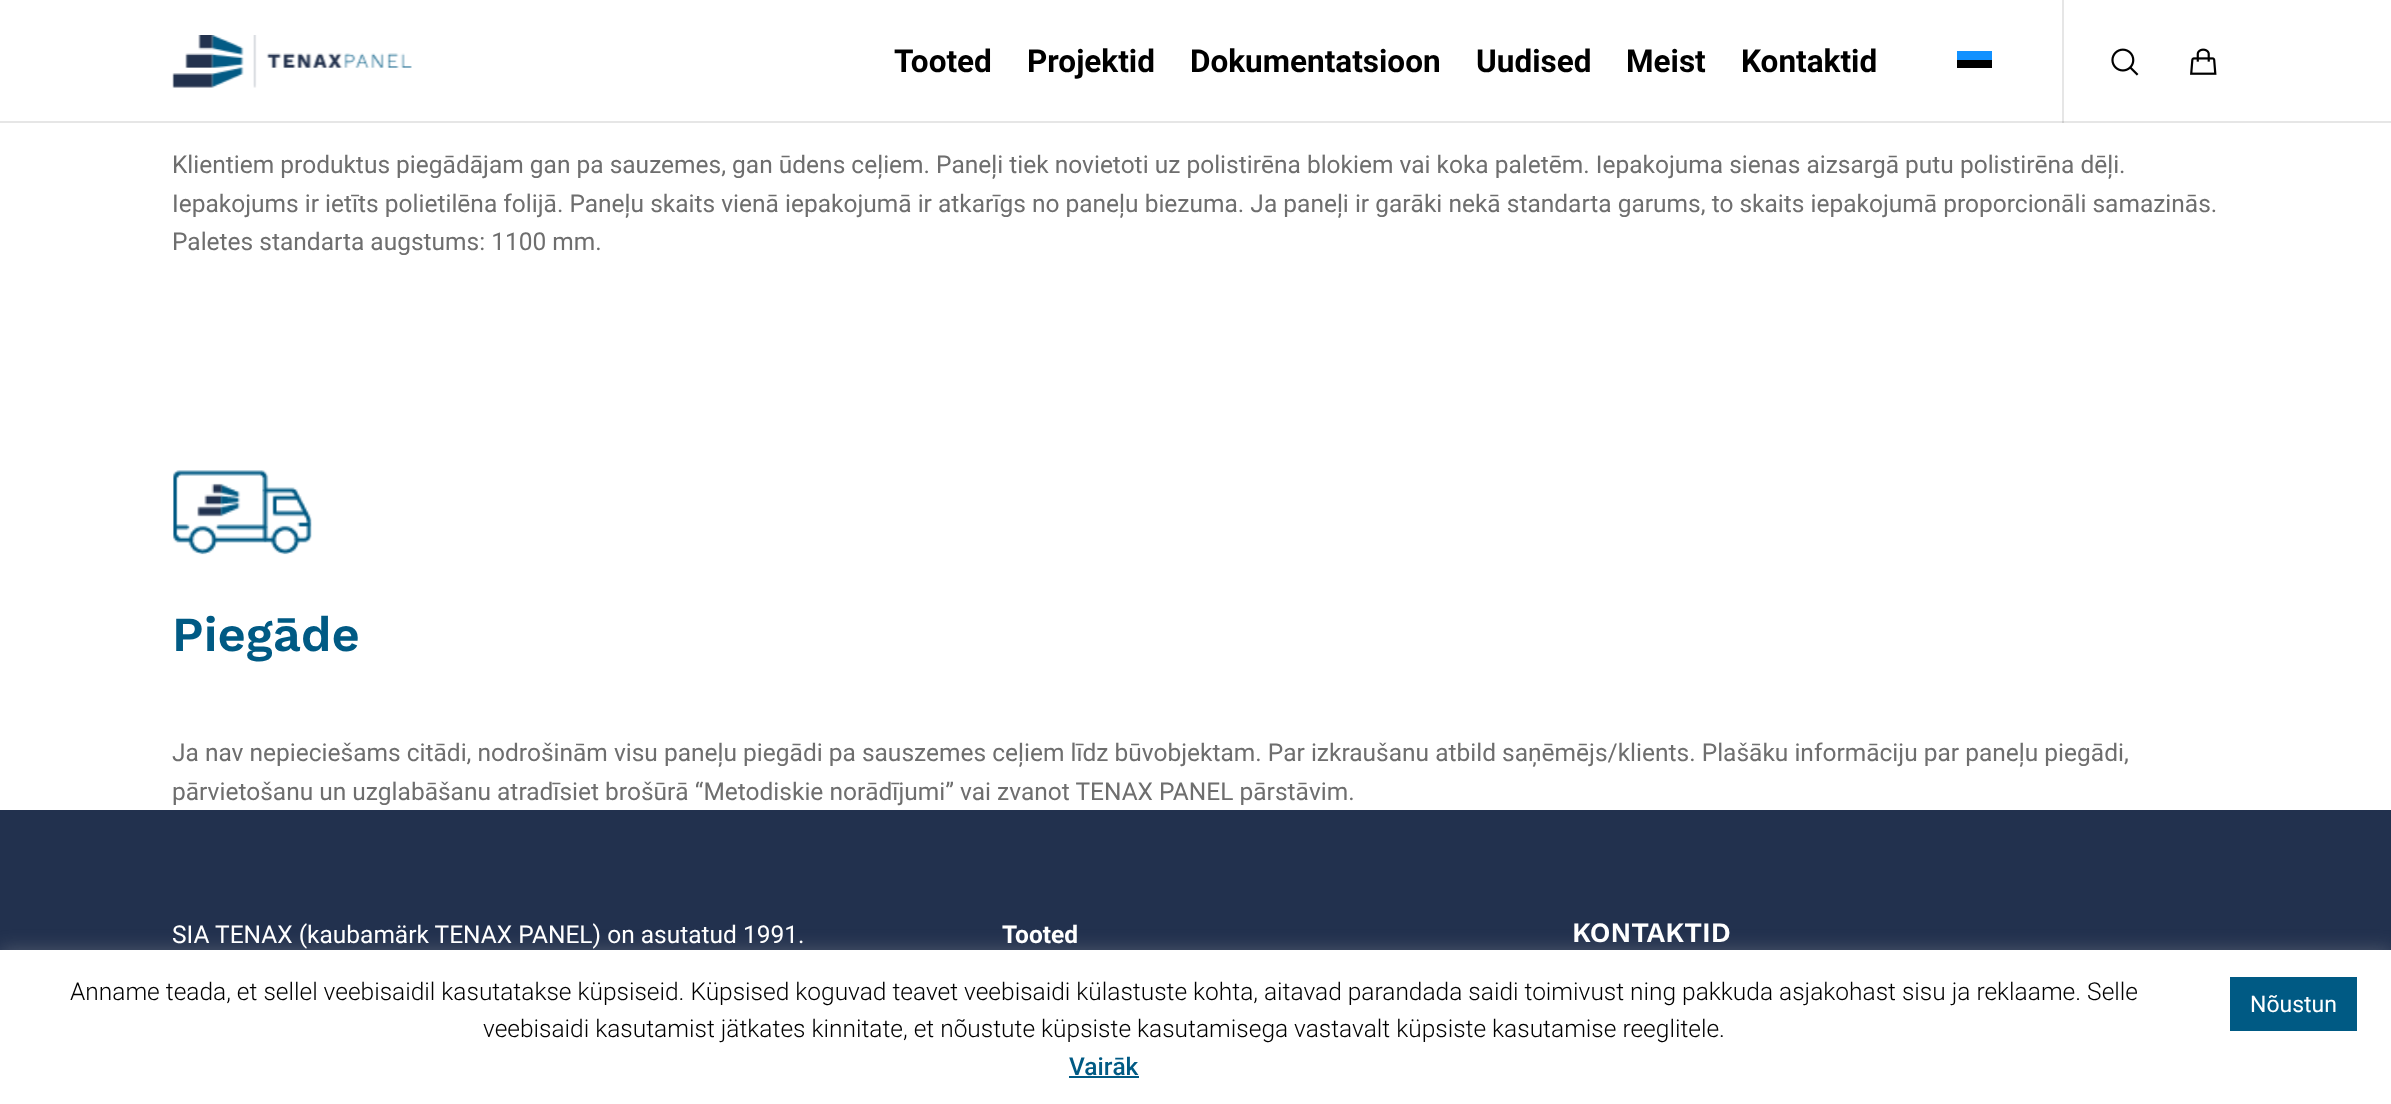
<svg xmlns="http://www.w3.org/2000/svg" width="2391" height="1104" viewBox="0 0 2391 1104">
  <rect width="100%" height="100%" fill="#fff"/>
  <path d="M2062 0h2v123H2062z" fill="#e6e6e6"/>
  <path d="M0 121h2391v2H0z" fill="#e6e6e6"/>
  <path d="M2062 121h2v2H2062z" fill="#cfcfcf"/>
  <image x="172" y="35" width="240" height="53" href="img/1.png"/>
  <path d="M1957 51h35v9H1957z" fill="#1291ff"/>
  <path d="M1957 60h35v8H1957z" fill="#000"/>
  <image x="2111" y="48" width="28" height="28" href="img/2.png"/>
  <image x="2190" y="48" width="27" height="27" href="img/3.png"/>
  <image x="173" y="470" width="139" height="85" href="img/4.png"/>
  <path d="M0 810h2391v140H0z" fill="#22314e"/>
  <path d="M0 949h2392v154H0z" fill="#acabab4d" filter="blur(9px)"/>
  <path d="M0 950h2391v154H0z" fill="#fff"/>
  <path d="M2230 977h127v54H2230z" fill="#005a84"/>
  <path d="M1069 1076h70v2H1069z" fill="#005a84"/>
  <g font-family="Roboto" font-size="31.5" font-weight="bold" fill="#000">
    <text x="894" y="72">Tooted</text>
    <text x="1027" y="72">Projektid</text>
    <text x="1190" y="72">Dokumentatsioon</text>
    <text x="1476" y="72">Uudised</text>
    <text x="1626" y="72">Meist</text>
    <text x="1741" y="72">Kontaktid</text>
  </g>
  <g font-family="Roboto" font-size="24.5" fill="#6e6e6e">
    <text x="172" y="173">Klientiem produktus piegādājam gan pa sauzemes, gan ūdens ceļiem. Paneļi tiek novietoti uz polistirēna blokiem vai koka paletēm. Iepakojuma sienas aizsargā putu polistirēna dēļi.</text>
    <text x="172" y="212">Iepakojums ir ietīts polietilēna folijā. Paneļu skaits vienā iepakojumā ir atkarīgs no paneļu biezuma. Ja paneļi ir garāki nekā standarta garums, to skaits iepakojumā proporcionāli samazinās.</text>
    <text x="172" y="250">Paletes standarta augstums: 1100 mm.</text>
  </g>
  <text x="172" y="651" font-family="Work Sans" font-size="49" font-weight="600" fill="#005a84">Piegāde</text>
  <g font-family="Roboto" font-size="24.5" fill="#6e6e6e">
    <text x="172" y="761">Ja nav nepieciešams citādi, nodrošinām visu paneļu piegādi pa sauszemes ceļiem līdz būvobjektam. Par izkraušanu atbild saņēmējs/klients. Plašāku informāciju par paneļu piegādi,</text>
    <text x="172" y="800">pārvietošanu un uzglabāšanu atradīsiet brošūrā “Metodiskie norādījumi” vai zvanot TENAX PANEL pārstāvim.</text>
  </g>
  <text x="172" y="943" font-family="Roboto" font-size="24.5" fill="#fff">SIA TENAX (kaubamärk TENAX PANEL) on asutatud 1991.</text>
  <text x="1002" y="943" font-family="Roboto" font-size="24.5" font-weight="bold" fill="#fff">Tooted</text>
  <text x="1572" y="942" font-family="Work Sans" font-size="28" font-weight="600" fill="#fff">KONTAKTID</text>
  <text x="70" y="1000" font-family="Roboto" font-size="24.5" font-weight="300" fill="#000">Anname teada, et sellel veebisaidil kasutatakse küpsiseid. Küpsised koguvad teavet veebisaidi külastuste kohta, aitavad parandada saidi toimivust ning pakkuda asjakohast sisu ja reklaame. Selle</text>
  <text x="2250" y="1012" font-family="Roboto" font-size="23" fill="#fff">Nõustun</text>
  <text x="483" y="1037" font-family="Roboto" font-size="24.5" font-weight="300" fill="#000">veebisaidi kasutamist jätkates kinnitate, et nõustute küpsiste kasutamisega vastavalt küpsiste kasutamise reeglitele.</text>
  <text x="1069" y="1075" font-family="Roboto" font-size="24.5" font-weight="500" fill="#005a84">Vairāk</text>
</svg>
